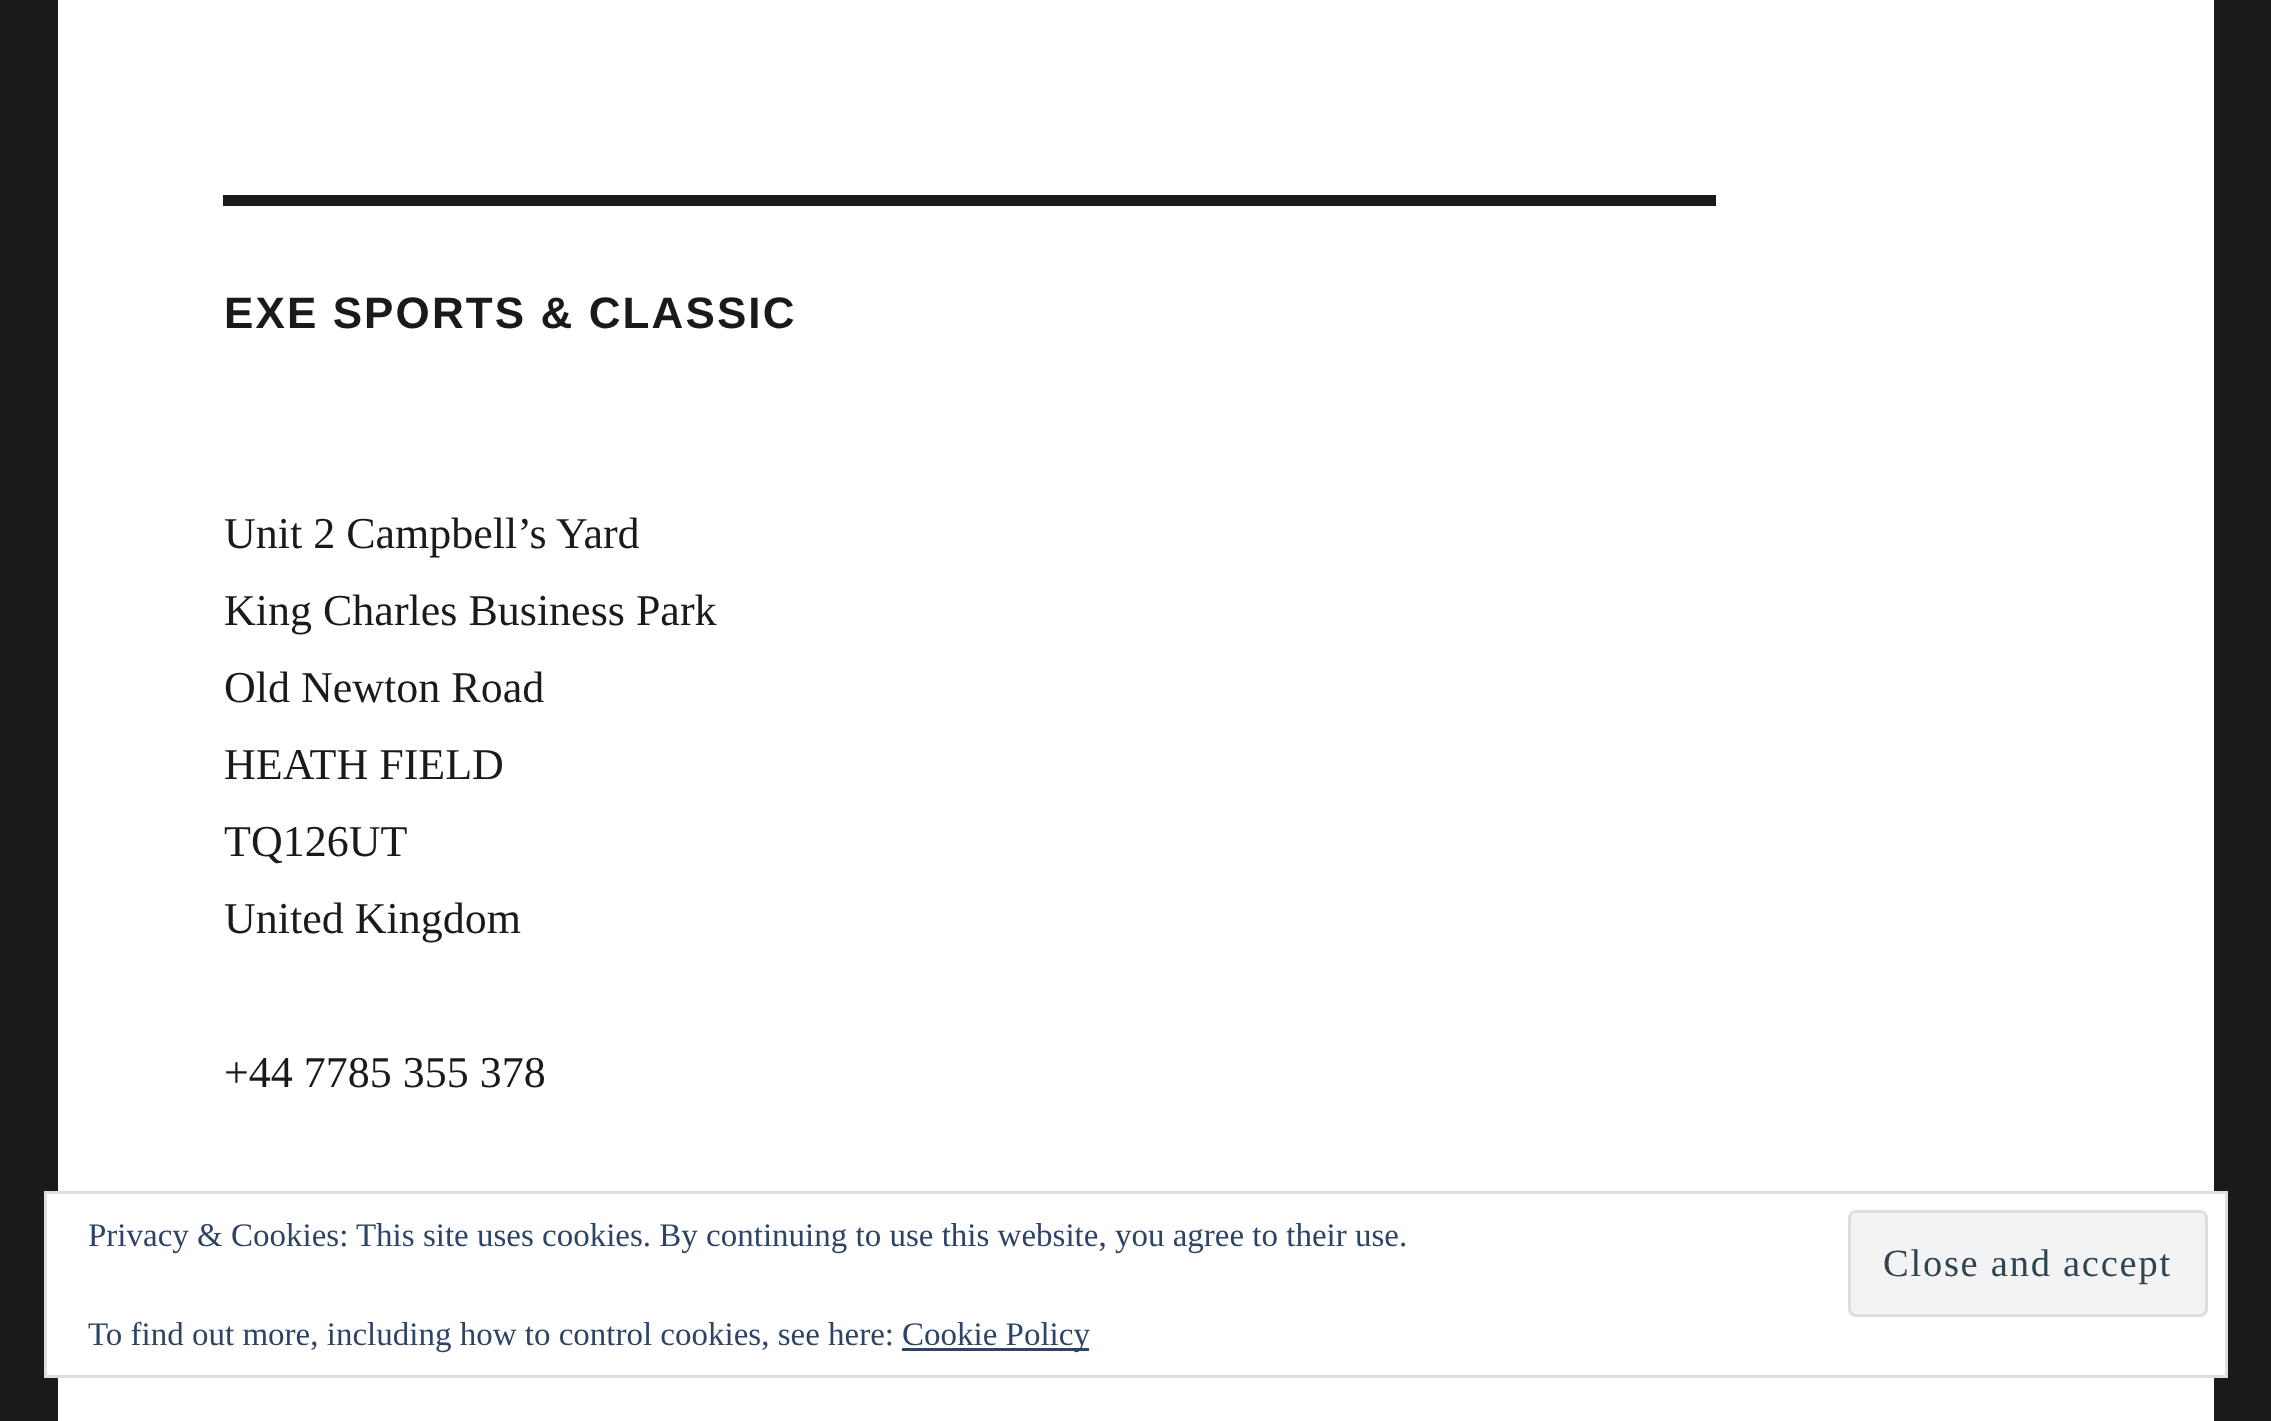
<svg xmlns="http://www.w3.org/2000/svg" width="2271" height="1421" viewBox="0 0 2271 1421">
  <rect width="100%" height="100%" fill="#1a1a1a"/>
  <path d="M58 0h2156v1421H58z" fill="#fff"/>
  <path d="M223 195h1493v11H223z" fill="#1a1a1a"/>
  <path d="M45.5 1192.5h2181v184H45.5z" fill="#fff" stroke="#dedede" stroke-width="3"/>
  <rect x="1849.5" y="1211.5" width="357" height="104" rx="6.5" fill="#f3f3f3" stroke="#dedede" stroke-width="3"/>
  <path d="M902 1348h187v3H902z" fill="#2e4467"/>
  <text x="224" y="328" font-family="Liberation Sans" font-size="44" font-weight="bold" letter-spacing="2.1" fill="#1a1a1a">EXE SPORTS &amp; CLASSIC</text>
  <g font-family="Liberation Serif" font-size="44" fill="#1a1a1a">
    <text x="224" y="548">Unit 2 Campbell’s Yard</text>
    <text x="224" y="625">King Charles Business Park</text>
    <text x="224" y="702">Old Newton Road</text>
    <text x="224" y="779">HEATH FIELD</text>
    <text x="224" y="856">TQ126UT</text>
    <text x="224" y="933">United Kingdom</text>
    <text x="224" y="1087">+44 7785 355 378</text>
  </g>
  <text x="88" y="1246" font-family="Liberation Serif" font-size="33" fill="#2e4467">Privacy &amp; Cookies: This site uses cookies. By continuing to use this website, you agree to their use.</text>
  <text x="1883" y="1276" font-family="Liberation Serif" font-size="38.5" letter-spacing="1.75" fill="#2e4453">Close and accept</text>
  <g font-family="Liberation Serif" font-size="33" fill="#2e4467">
    <text x="88" y="1345">To find out more, including how to control cookies, see here:</text>
    <text x="902" y="1345">Cookie Policy</text>
  </g>
</svg>
